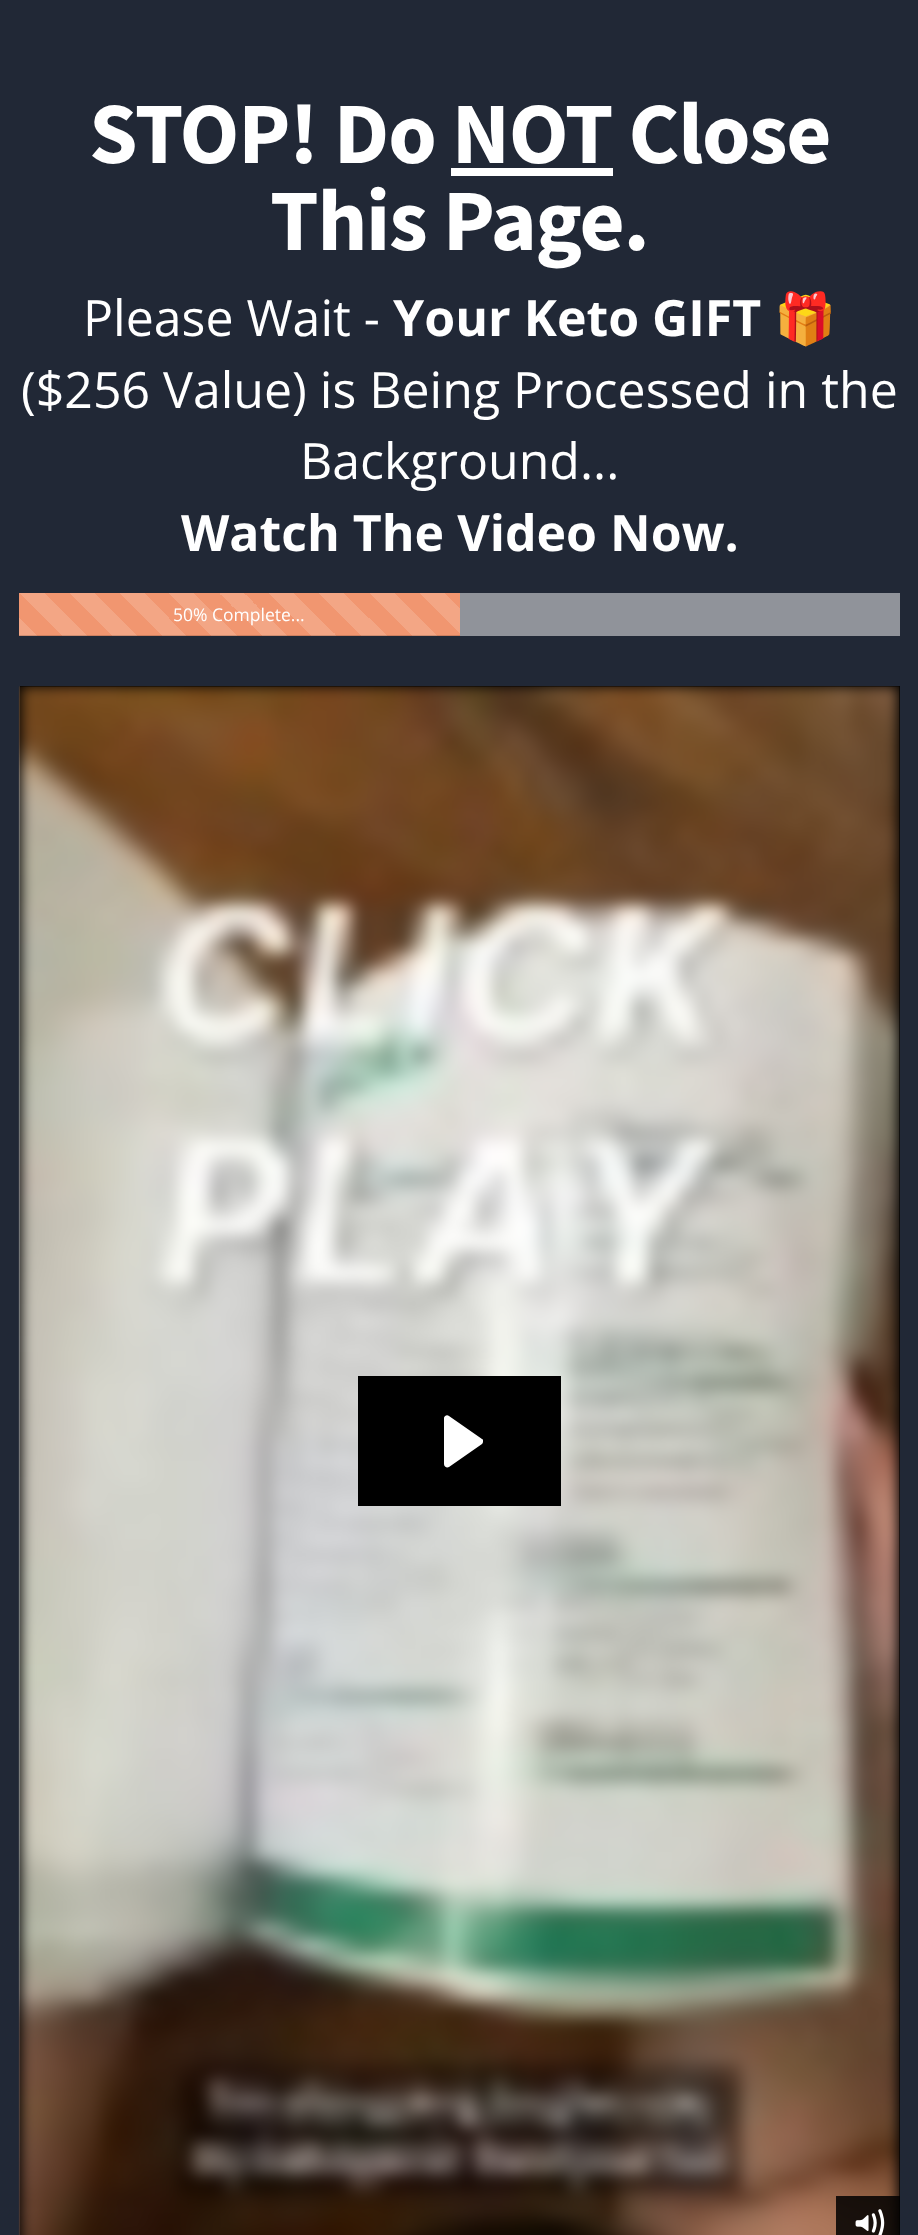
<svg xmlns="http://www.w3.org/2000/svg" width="918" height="2235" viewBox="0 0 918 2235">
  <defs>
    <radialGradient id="g1" gradientUnits="userSpaceOnUse" cx="0" cy="0" r="1" gradientTransform="matrix(663 0 0 3949 469 2789)"><stop offset="0" stop-color="#29303d"/><stop offset="0.5" stop-color="#212836"/></radialGradient>
    <linearGradient id="g2" gradientUnits="userSpaceOnUse" x1="19" y1="643" x2="69" y2="593"><stop offset="0.25" stop-color="#f3a685"/><stop offset="0.25" stop-color="#f19670"/><stop offset="0.5" stop-color="#f19670"/><stop offset="0.5" stop-color="#f3a685"/><stop offset="0.75" stop-color="#f3a685"/><stop offset="0.75" stop-color="#f19670"/><stop offset="1" stop-color="#f19670"/></linearGradient>
    <linearGradient id="g3" gradientUnits="userSpaceOnUse" x1="69" y1="643" x2="119" y2="593"><stop offset="0.25" stop-color="#f3a685"/><stop offset="0.25" stop-color="#f19670"/><stop offset="0.5" stop-color="#f19670"/><stop offset="0.5" stop-color="#f3a685"/><stop offset="0.75" stop-color="#f3a685"/><stop offset="0.75" stop-color="#f19670"/><stop offset="1" stop-color="#f19670"/></linearGradient>
    <linearGradient id="g4" gradientUnits="userSpaceOnUse" x1="119" y1="643" x2="169" y2="593"><stop offset="0.25" stop-color="#f3a685"/><stop offset="0.25" stop-color="#f19670"/><stop offset="0.5" stop-color="#f19670"/><stop offset="0.5" stop-color="#f3a685"/><stop offset="0.75" stop-color="#f3a685"/><stop offset="0.75" stop-color="#f19670"/><stop offset="1" stop-color="#f19670"/></linearGradient>
    <linearGradient id="g5" gradientUnits="userSpaceOnUse" x1="169" y1="643" x2="219" y2="593"><stop offset="0.25" stop-color="#f3a685"/><stop offset="0.25" stop-color="#f19670"/><stop offset="0.5" stop-color="#f19670"/><stop offset="0.5" stop-color="#f3a685"/><stop offset="0.75" stop-color="#f3a685"/><stop offset="0.75" stop-color="#f19670"/><stop offset="1" stop-color="#f19670"/></linearGradient>
    <linearGradient id="g6" gradientUnits="userSpaceOnUse" x1="219" y1="643" x2="269" y2="593"><stop offset="0.25" stop-color="#f3a685"/><stop offset="0.25" stop-color="#f19670"/><stop offset="0.5" stop-color="#f19670"/><stop offset="0.5" stop-color="#f3a685"/><stop offset="0.75" stop-color="#f3a685"/><stop offset="0.75" stop-color="#f19670"/><stop offset="1" stop-color="#f19670"/></linearGradient>
    <linearGradient id="g7" gradientUnits="userSpaceOnUse" x1="269" y1="643" x2="319" y2="593"><stop offset="0.25" stop-color="#f3a685"/><stop offset="0.25" stop-color="#f19670"/><stop offset="0.5" stop-color="#f19670"/><stop offset="0.5" stop-color="#f3a685"/><stop offset="0.75" stop-color="#f3a685"/><stop offset="0.75" stop-color="#f19670"/><stop offset="1" stop-color="#f19670"/></linearGradient>
    <linearGradient id="g8" gradientUnits="userSpaceOnUse" x1="319" y1="643" x2="369" y2="593"><stop offset="0.25" stop-color="#f3a685"/><stop offset="0.25" stop-color="#f19670"/><stop offset="0.5" stop-color="#f19670"/><stop offset="0.5" stop-color="#f3a685"/><stop offset="0.75" stop-color="#f3a685"/><stop offset="0.75" stop-color="#f19670"/><stop offset="1" stop-color="#f19670"/></linearGradient>
    <linearGradient id="g9" gradientUnits="userSpaceOnUse" x1="369" y1="643" x2="419" y2="593"><stop offset="0.25" stop-color="#f3a685"/><stop offset="0.25" stop-color="#f19670"/><stop offset="0.5" stop-color="#f19670"/><stop offset="0.5" stop-color="#f3a685"/><stop offset="0.75" stop-color="#f3a685"/><stop offset="0.75" stop-color="#f19670"/><stop offset="1" stop-color="#f19670"/></linearGradient>
    <linearGradient id="g10" gradientUnits="userSpaceOnUse" x1="419" y1="643" x2="469" y2="593"><stop offset="0.25" stop-color="#f3a685"/><stop offset="0.25" stop-color="#f19670"/><stop offset="0.5" stop-color="#f19670"/><stop offset="0.5" stop-color="#f3a685"/><stop offset="0.75" stop-color="#f3a685"/><stop offset="0.75" stop-color="#f19670"/><stop offset="1" stop-color="#f19670"/></linearGradient>
  </defs>
  <rect width="100%" height="100%" fill="#fff"/>
  <path d="M0 0h918v2235H0z" fill="url(#g1)"/>
  <path d="M451 168h162v8H451z" fill="#fff"/>
  <path d="M460 593h440v43H460z" fill="#90939a"/>
  <path d="M19 593h50v43H19z" fill="url(#g2)"/>
  <path d="M69 593h50v43H69z" fill="url(#g3)"/>
  <path d="M119 593h50v43H119z" fill="url(#g4)"/>
  <path d="M169 593h50v43H169z" fill="url(#g5)"/>
  <path d="M219 593h50v43H219z" fill="url(#g6)"/>
  <path d="M269 593h50v43H269z" fill="url(#g7)"/>
  <path d="M319 593h50v43H319z" fill="url(#g8)"/>
  <path d="M369 593h50v43H369z" fill="url(#g9)"/>
  <path d="M419 593h41v43H419z" fill="url(#g10)"/>
  <path d="M19 635h441v1H19z" fill="#00000026"/>
  <image x="18" y="686" width="2" height="1549" href="img/1.png"/>
  <path d="M20 686h880v1549H20z" fill="#000"/>
  <image x="19" y="686" width="881" height="1549" href="img/2.png"/>
  <path d="M358 1376h203v130H358z" fill="#000"/>
  <path d="M449 1416C447 1414 444 1416 444 1418V1464C444 1467 447 1468 449 1467L482 1444C483 1443 483 1442 483 1441C483 1440 483 1439 482 1439Z" fill="#fff" fill-rule="evenodd"/>
  <path d="M836 2196h64v39H836z" fill="#000000d9"/>
  <image x="855" y="2209" width="30" height="26" href="img/3.png"/>
  <g font-family="Source Sans Pro" font-size="87.5" font-weight="bold" letter-spacing="-1.25" fill="#fff">
    <text x="89" y="163">STOP! Do NOT Close</text>
    <text x="270" y="250">This Page.</text>
  </g>
  <text x="83" y="336" font-family="Open Sans" font-size="50" fill="#fff">Please Wait -</text>
  <text x="393" y="336" font-family="Open Sans" font-size="50" font-weight="bold" fill="#fff">Your Keto GIFT</text>
  <text x="774" y="336" font-family="Noto Color Emoji" font-size="50" fill="#fff">🎁</text>
  <g font-family="Open Sans" font-size="50" fill="#fff">
    <text x="21" y="408">($256 Value) is Being Processed in the</text>
    <text x="300" y="479">Background...</text>
  </g>
  <text x="181" y="551" font-family="Open Sans" font-size="50" font-weight="bold" fill="#fff">Watch The Video Now.</text>
  <text x="173" y="621" font-family="Open Sans" font-size="17.5" fill="#fff">50% Complete...</text>
</svg>
